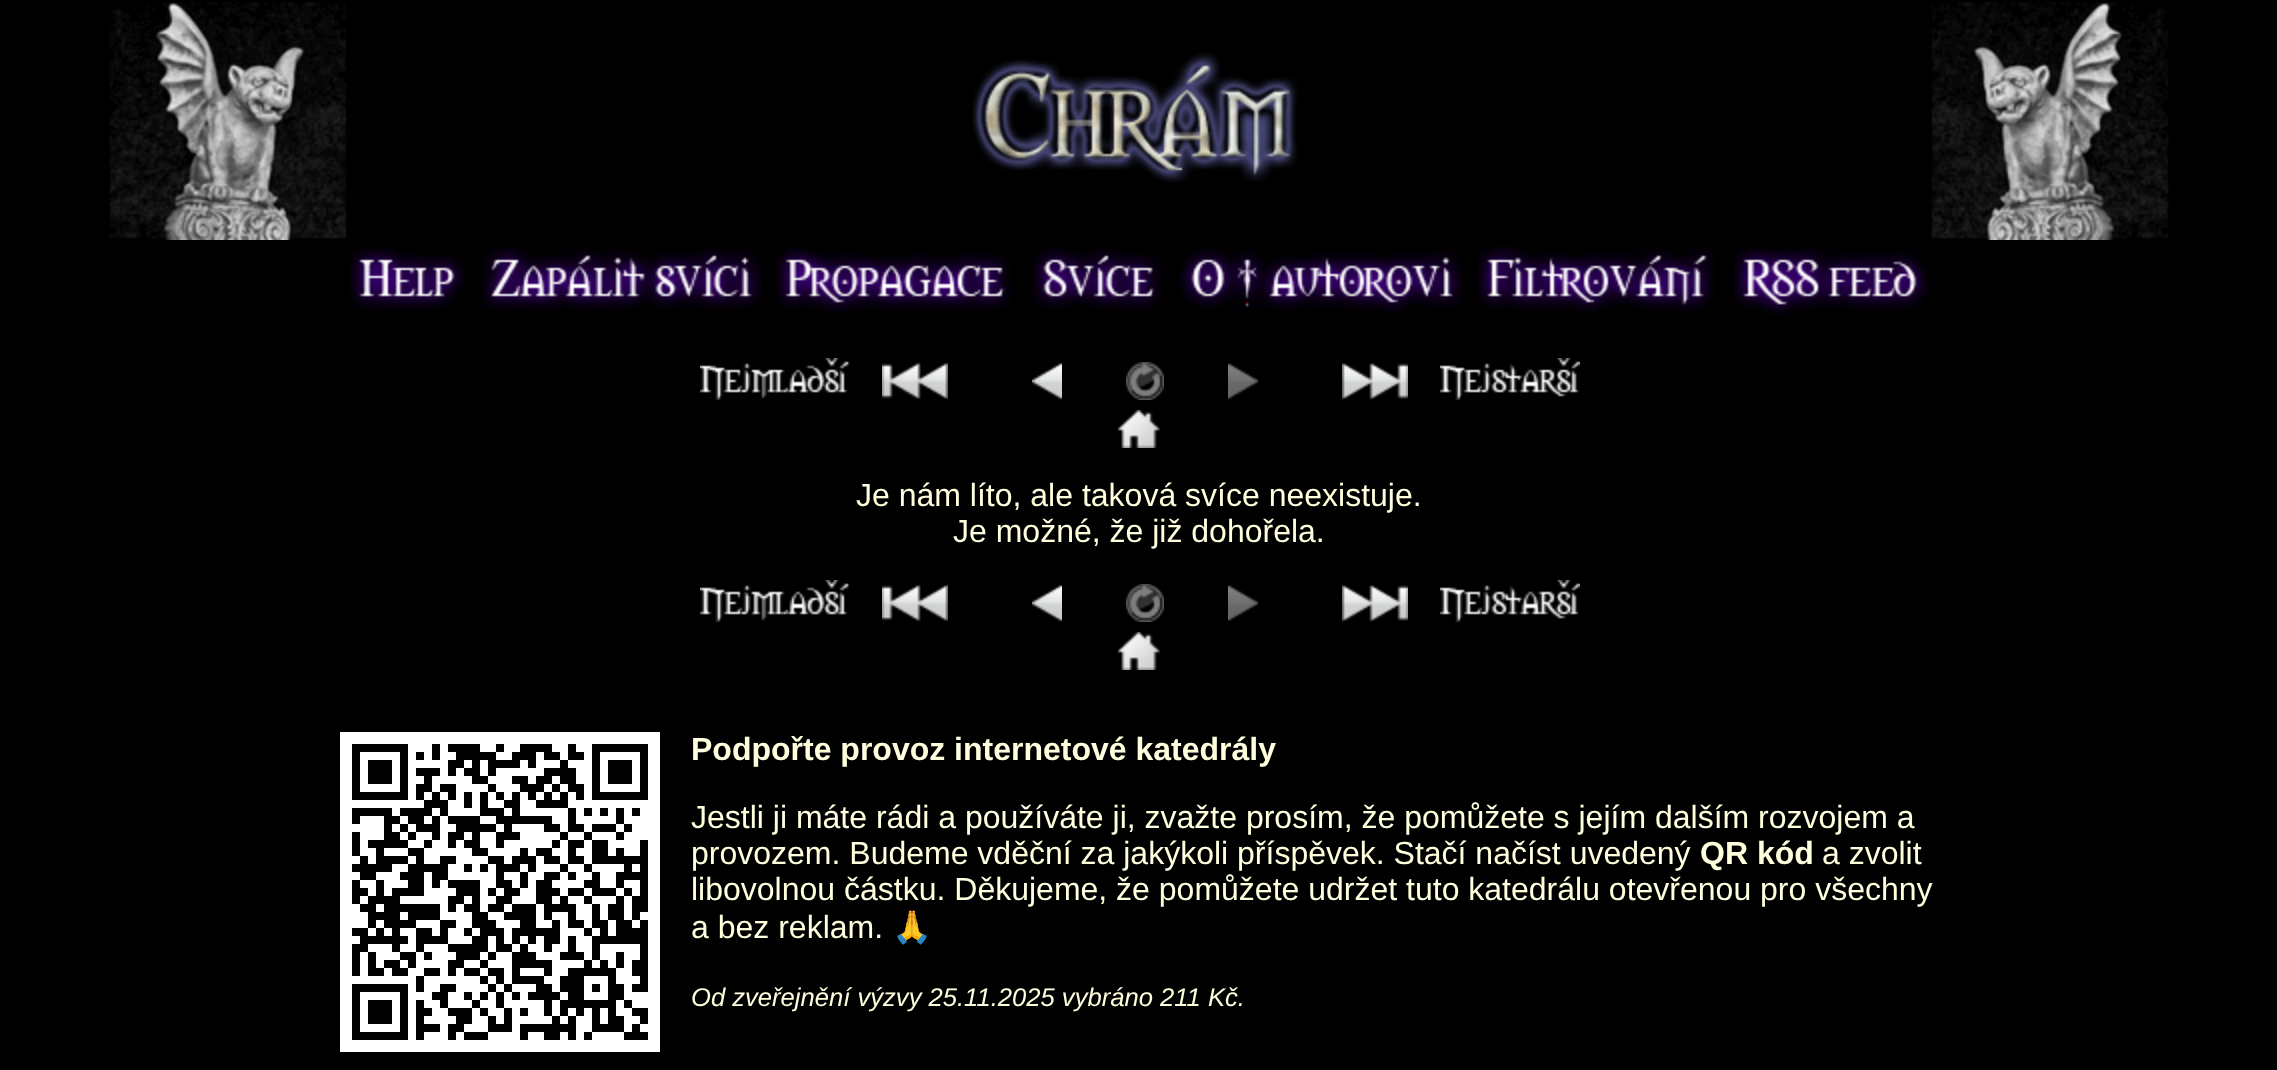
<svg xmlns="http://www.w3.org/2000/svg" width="2277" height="1070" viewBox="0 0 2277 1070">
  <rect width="100%" height="100%" fill="#000"/>
  <image x="109" y="2" width="238" height="238" href="img/1.png"/>
  <image x="972" y="52" width="327" height="131" href="img/2.png"/>
  <image x="1931" y="2" width="238" height="238" href="img/3.png"/>
  <image x="350" y="246" width="116" height="64" href="img/4.png"/>
  <image x="481" y="245" width="281" height="65" href="img/5.png"/>
  <image x="776" y="246" width="237" height="68" href="img/6.png"/>
  <image x="1032" y="245" width="131" height="65" href="img/7.png"/>
  <image x="1179" y="247" width="284" height="67" href="img/8.png"/>
  <image x="1477" y="245" width="239" height="69" href="img/9.png"/>
  <image x="1734" y="246" width="195" height="70" href="img/10.png"/>
  <image x="700" y="358" width="150" height="42" href="img/11.png"/>
  <image x="882" y="362" width="66" height="38" href="img/12.png"/>
  <image x="1032" y="363" width="30" height="37" href="img/13.png"/>
  <image x="1126" y="362" width="38" height="38" href="img/14.png"/>
  <image x="1228" y="363" width="30" height="37" href="img/15.png"/>
  <image x="1342" y="363" width="66" height="37" href="img/16.png"/>
  <image x="1440" y="358" width="140" height="42" href="img/17.png"/>
  <image x="1118" y="410" width="42" height="38" href="img/18.png"/>
  <image x="700" y="580" width="150" height="42" href="img/11.png"/>
  <image x="882" y="584" width="66" height="38" href="img/12.png"/>
  <image x="1032" y="585" width="30" height="37" href="img/13.png"/>
  <image x="1126" y="584" width="38" height="38" href="img/14.png"/>
  <image x="1228" y="585" width="30" height="37" href="img/15.png"/>
  <image x="1342" y="585" width="66" height="37" href="img/16.png"/>
  <image x="1440" y="580" width="140" height="42" href="img/17.png"/>
  <image x="1118" y="632" width="42" height="38" href="img/18.png"/>
  <image x="340" y="732" width="320" height="320" href="img/19.png"/>
  <g font-family="Liberation Sans" font-size="32" fill="#ffd">
    <text x="856" y="506">Je nám líto, ale taková svíce neexistuje.</text>
    <text x="953" y="542">Je možné, že již dohořela.</text>
  </g>
  <text x="691" y="760" font-family="Liberation Sans" font-size="32" font-weight="bold" fill="#ffd">Podpořte provoz internetové katedrály</text>
  <g font-family="Liberation Sans" font-size="32" fill="#ffd">
    <text x="691" y="828">Jestli ji máte rádi a používáte ji, zvažte prosím, že pomůžete s jejím dalším rozvojem a</text>
    <text x="691" y="864">provozem. Budeme vděční za jakýkoli příspěvek. Stačí načíst uvedený</text>
  </g>
  <text x="1700" y="864" font-family="Liberation Sans" font-size="32" font-weight="bold" fill="#ffd">QR kód</text>
  <g font-family="Liberation Sans" font-size="32" fill="#ffd">
    <text x="1822" y="864">a zvolit</text>
    <text x="691" y="900">libovolnou částku. Děkujeme, že pomůžete udržet tuto katedrálu otevřenou pro všechny</text>
    <text x="691" y="938">a bez reklam.</text>
  </g>
  <text x="892" y="938" font-family="Noto Color Emoji" font-size="32" fill="#ffd">🙏</text>
  <text x="691" y="1006" font-family="Liberation Sans" font-size="25.6" font-style="italic" fill="#ffd">Od zveřejnění výzvy 25.11.2025 vybráno 211 Kč.</text>
</svg>
